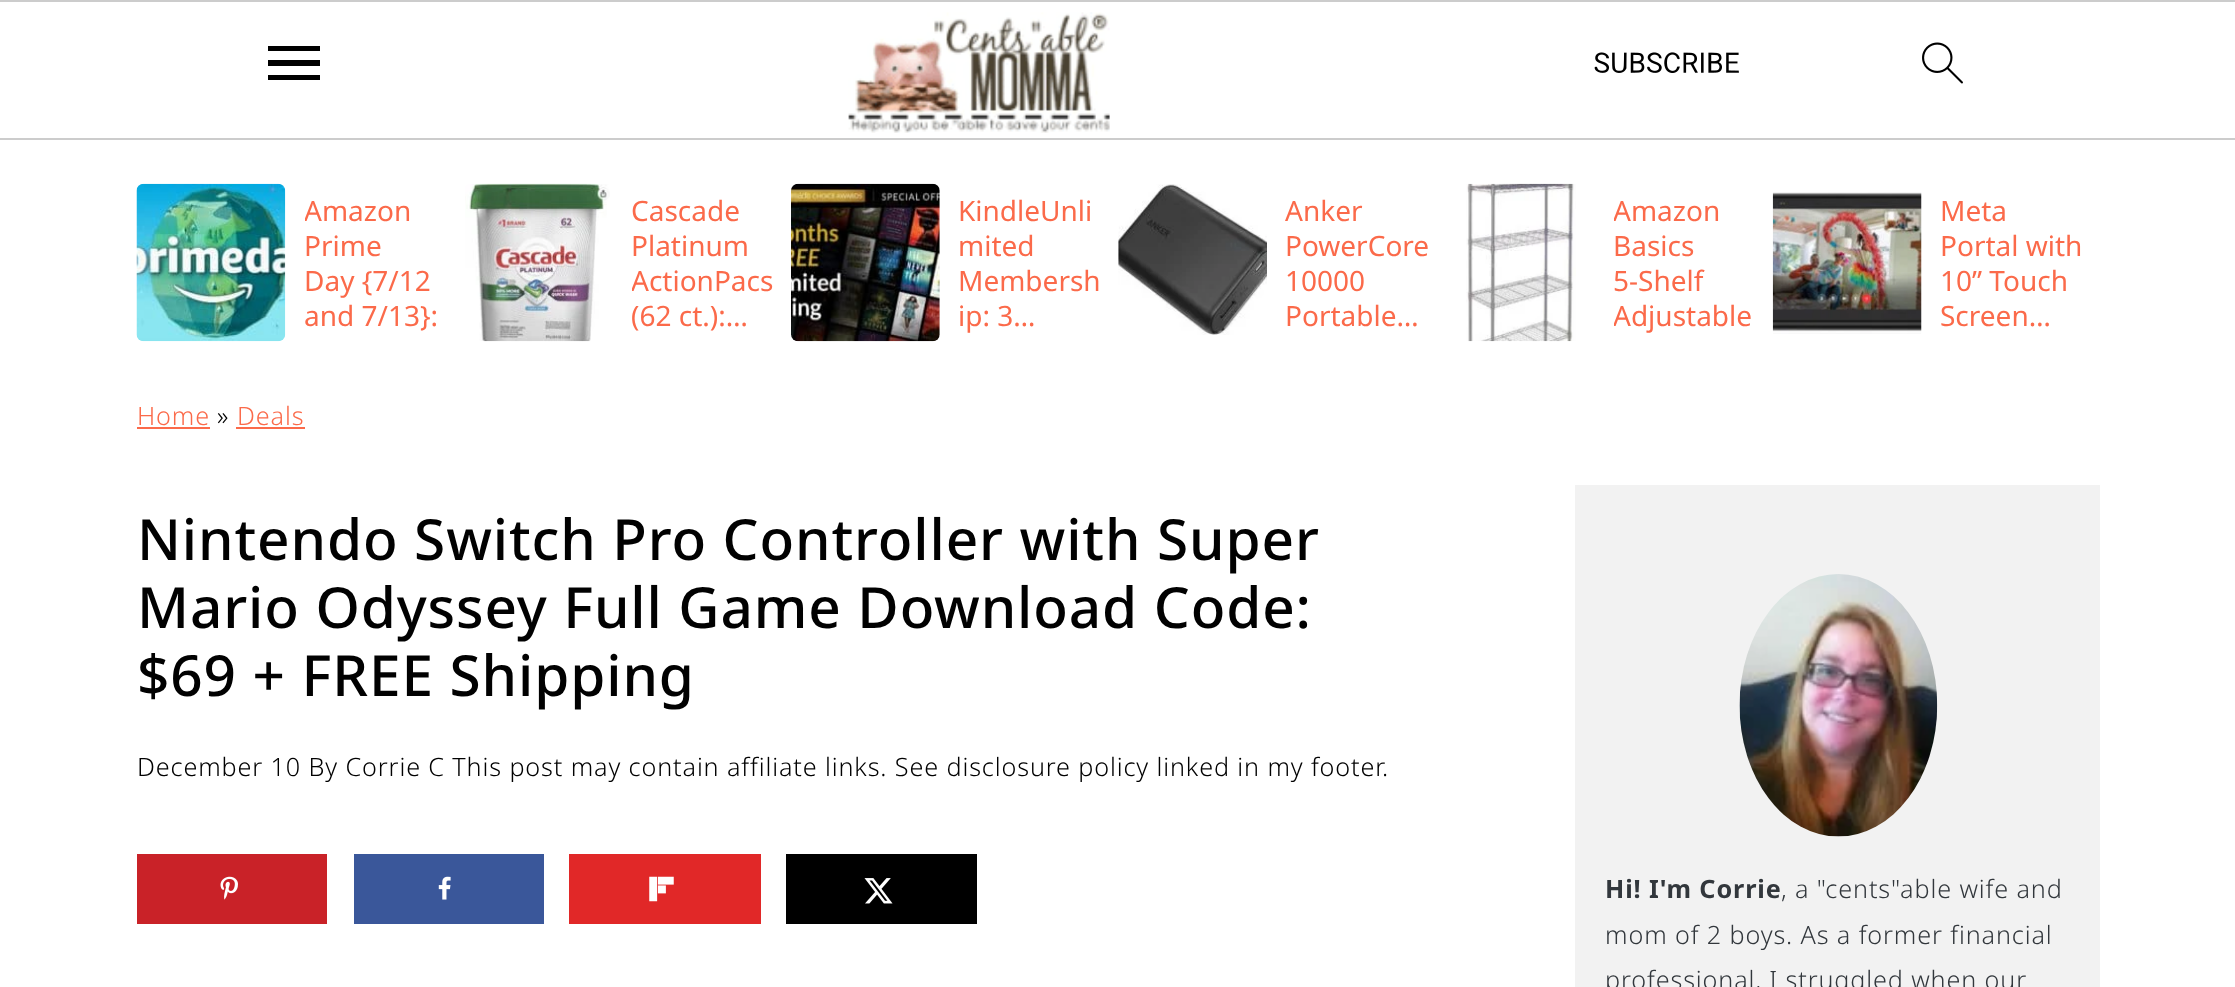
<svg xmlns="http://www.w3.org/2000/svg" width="2235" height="987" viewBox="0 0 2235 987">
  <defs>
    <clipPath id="clip1"><path d="M305 193h147v140H305z"/></clipPath>
    <clipPath id="clip2"><path d="M632 193h147v140H632z"/></clipPath>
    <clipPath id="clip3"><path d="M1614 193h147v140H1614z"/></clipPath>
  </defs>
  <rect width="100%" height="100%" fill="#fff"/>
  <path d="M0 0h2235v2H0z" fill="#ccc"/>
  <path d="M0 138h2235v2H0z" fill="#ccc"/>
  <path d="M268 80H320V75H268ZM268 66H320V60H268ZM268 46V51H320V46Z" fill="#000"/>
  <image x="848" y="12" width="262" height="121" href="img/1.png"/>
  <image x="1594" y="52" width="145" height="21" href="img/2.png"/>
  <image x="1922" y="42" width="41" height="42" href="img/3.png"/>
  <image x="136" y="183" width="150" height="159" href="img/4.png"/>
  <image x="465" y="183" width="145" height="159" href="img/5.png"/>
  <image x="791" y="183" width="149" height="159" href="img/6.png"/>
  <image x="1118" y="184" width="149" height="151" href="img/7.png"/>
  <image x="1466" y="183" width="110" height="159" href="img/8.png"/>
  <image x="1772" y="192" width="150" height="142" href="img/9.png"/>
  <path d="M137 427h73v2H137z" fill="#fb6a4a"/>
  <path d="M236 427h69v2H236z" fill="#fb6a4a"/>
  <path d="M137 854h190v70H137z" fill="#c92228"/>
  <image x="220" y="876" width="18" height="24" href="img/10.png"/>
  <path d="M354 854h190v70H354z" fill="#3a579a"/>
  <image x="438" y="876" width="13" height="24" href="img/11.png"/>
  <path d="M569 854h192v70H569z" fill="#e12828"/>
  <image x="649" y="876" width="25" height="26" href="img/12.png"/>
  <path d="M786 854h191v70H786z" fill="#000"/>
  <image x="864" y="878" width="29" height="26" href="img/13.png"/>
  <path d="M1575 485h525v502H1575z" fill="#f2f2f2"/>
  <image x="1739" y="574" width="199" height="263" href="img/14.png"/>
  <g clip-path="url(#clip1)">
    <text x="304" y="221" font-family="Noto Sans" font-size="28" fill="#fb6a4a">Amazon</text>
  </g>
  <g font-family="Noto Sans" font-size="28" fill="#fb6a4a">
    <text x="304" y="256">Prime</text>
    <text x="304" y="291">Day {7/12</text>
    <text x="304" y="326">and 7/13}:</text>
    <text x="631" y="221">Cascade</text>
    <text x="631" y="256">Platinum</text>
  </g>
  <g clip-path="url(#clip2)">
    <text x="631" y="291" font-family="Noto Sans" font-size="28" fill="#fb6a4a">ActionPacs</text>
  </g>
  <g font-family="Noto Sans" font-size="28" fill="#fb6a4a">
    <text x="631" y="326">(62 ct.):…</text>
    <text x="958" y="221">KindleUnli</text>
    <text x="958" y="256">mited</text>
    <text x="958" y="291">Membersh</text>
    <text x="958" y="326">ip: 3…</text>
    <text x="1285" y="221">Anker</text>
    <text x="1285" y="256">PowerCore</text>
    <text x="1285" y="291">10000</text>
    <text x="1285" y="326">Portable…</text>
  </g>
  <g clip-path="url(#clip3)">
    <text x="1613" y="221" font-family="Noto Sans" font-size="28" fill="#fb6a4a">Amazon</text>
  </g>
  <g font-family="Noto Sans" font-size="28" fill="#fb6a4a">
    <text x="1613" y="256">Basics</text>
    <text x="1613" y="291">5-Shelf</text>
  </g>
  <g clip-path="url(#clip3)">
    <text x="1613" y="326" font-family="Noto Sans" font-size="28" fill="#fb6a4a">Adjustable</text>
  </g>
  <g font-family="Noto Sans" font-size="28" fill="#fb6a4a">
    <text x="1940" y="221">Meta</text>
    <text x="1940" y="256">Portal with</text>
    <text x="1940" y="291">10” Touch</text>
    <text x="1940" y="326">Screen…</text>
  </g>
  <text x="137" y="425" font-family="Noto Sans" font-size="25.2" font-weight="300" letter-spacing="0.88" fill="#fb6a4a">Home</text>
  <text x="217" y="425" font-family="Noto Sans" font-size="25.2" font-weight="300" letter-spacing="0.88" fill="#010101">»</text>
  <text x="237" y="425" font-family="Noto Sans" font-size="25.2" font-weight="300" letter-spacing="0.88" fill="#fb6a4a">Deals</text>
  <g font-family="Noto Sans" font-size="56.7" font-weight="500" letter-spacing="0.88" fill="#010101">
    <text x="137" y="560">Nintendo Switch Pro Controller with Super</text>
    <text x="137" y="628">Mario Odyssey Full Game Download Code:</text>
    <text x="137" y="696">$69 + FREE Shipping</text>
  </g>
  <text x="137" y="776" font-family="Noto Sans" font-size="25.2" font-weight="300" letter-spacing="0.88" fill="#010101">December 10 By Corrie C This post may contain affiliate links. See disclosure policy linked in my footer.</text>
  <text x="1605" y="898" font-family="Noto Sans" font-size="25.2" font-weight="bold" letter-spacing="0.88" fill="#32373c">Hi! I'm Corrie</text>
  <g font-family="Noto Sans" font-size="25.2" font-weight="300" letter-spacing="0.88" fill="#32373c">
    <text x="1781" y="898">, a "cents"able wife and</text>
    <text x="1605" y="944">mom of 2 boys. As a former financial</text>
    <text x="1605" y="989">professional, I struggled when our</text>
  </g>
</svg>
